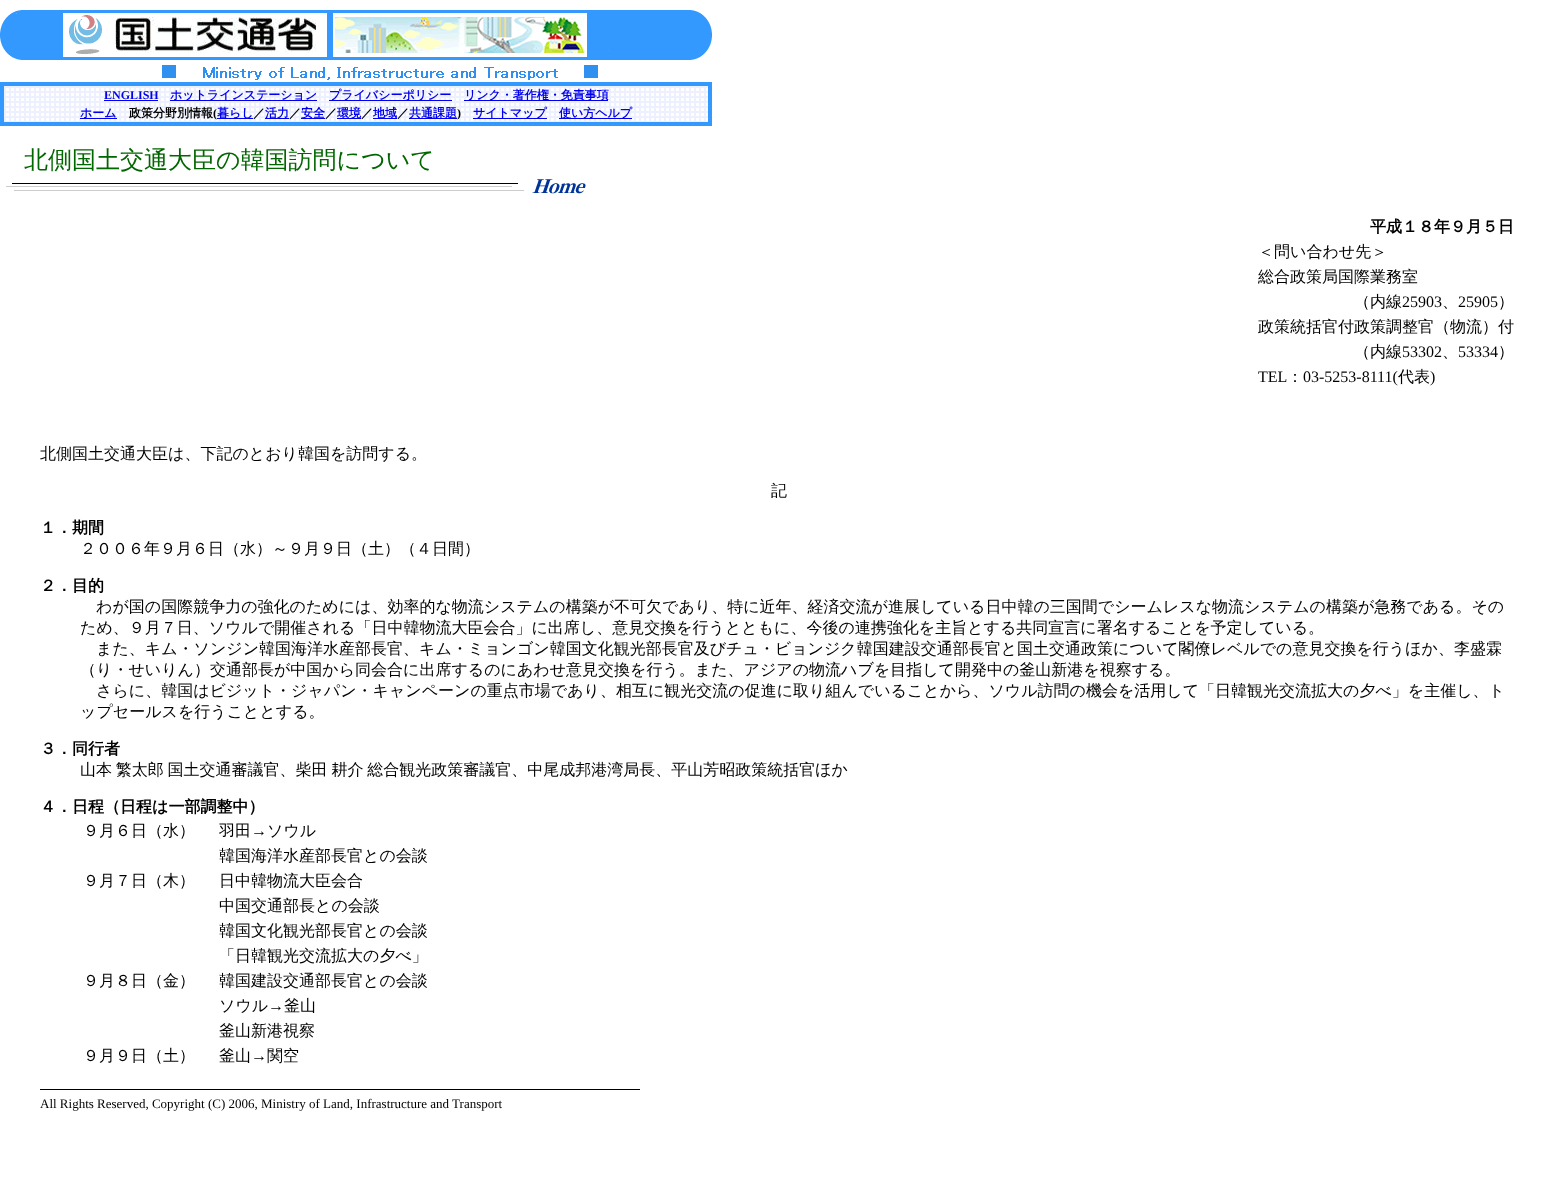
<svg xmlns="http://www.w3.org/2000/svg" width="1557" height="1197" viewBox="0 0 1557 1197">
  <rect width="100%" height="100%" fill="#fff"/>
  <image x="0" y="10" width="600" height="70" href="img/1.png"/>
  <image x="600" y="10" width="112" height="50" href="img/2.png"/>
  <image x="4" y="86" width="704" height="36" href="img/3.png"/>
  <path d="M0 82h712v4H0z" fill="#39f"/>
  <path d="M0 86h4v36H0z" fill="#39f"/>
  <path d="M104 100h54v1H104z" fill="#00e"/>
  <path d="M170 100h147v1H170z" fill="#00e"/>
  <path d="M329 100h123v1H329z" fill="#00e"/>
  <path d="M464 100h144v1H464z" fill="#00e"/>
  <path d="M708 86h4v36H708z" fill="#39f"/>
  <path d="M80 118h37v1H80z" fill="#00e"/>
  <path d="M217 118h36v1H217z" fill="#00e"/>
  <path d="M265 118h24v1H265z" fill="#00e"/>
  <path d="M301 118h24v1H301z" fill="#00e"/>
  <path d="M337 118h24v1H337z" fill="#00e"/>
  <path d="M373 118h24v1H373z" fill="#00e"/>
  <path d="M409 118h48v1H409z" fill="#00e"/>
  <path d="M473 118h74v1H473z" fill="#00e"/>
  <path d="M559 118h73v1H559z" fill="#00e"/>
  <path d="M0 122h712v4H0z" fill="#39f"/>
  <image x="6" y="183" width="498" height="8" href="img/4.png"/>
  <image x="504" y="179" width="82" height="15" href="img/5.png"/>
  <path d="M40 1089h600v1H40z" fill="#000"/>
  <text x="104" y="99" font-family="Liberation Serif" font-size="12" font-weight="bold" fill="#00e">ENGLISH</text>
  <g font-family="WenQuanYi Zen Hei" font-size="12" font-weight="bold" fill="#00e">
    <text x="170" y="99">ホットラインステーション</text>
    <text x="329" y="99">プライバシーポリシー</text>
    <text x="464" y="99">リンク・著作権・免責事項</text>
    <text x="80" y="117">ホーム</text>
  </g>
  <text x="129" y="117" font-family="WenQuanYi Zen Hei" font-size="12" font-weight="bold" fill="#000">政策分野別情報</text>
  <text x="213" y="117" font-family="Liberation Serif" font-size="12" font-weight="bold" fill="#000">(</text>
  <text x="217" y="117" font-family="WenQuanYi Zen Hei" font-size="12" font-weight="bold" fill="#00e">暮らし</text>
  <text x="253" y="117" font-family="WenQuanYi Zen Hei" font-size="12" font-weight="bold" fill="#000">／</text>
  <text x="265" y="117" font-family="WenQuanYi Zen Hei" font-size="12" font-weight="bold" fill="#00e">活力</text>
  <text x="289" y="117" font-family="WenQuanYi Zen Hei" font-size="12" font-weight="bold" fill="#000">／</text>
  <text x="301" y="117" font-family="WenQuanYi Zen Hei" font-size="12" font-weight="bold" fill="#00e">安全</text>
  <text x="325" y="117" font-family="WenQuanYi Zen Hei" font-size="12" font-weight="bold" fill="#000">／</text>
  <text x="337" y="117" font-family="WenQuanYi Zen Hei" font-size="12" font-weight="bold" fill="#00e">環境</text>
  <text x="361" y="117" font-family="WenQuanYi Zen Hei" font-size="12" font-weight="bold" fill="#000">／</text>
  <text x="373" y="117" font-family="WenQuanYi Zen Hei" font-size="12" font-weight="bold" fill="#00e">地域</text>
  <text x="397" y="117" font-family="WenQuanYi Zen Hei" font-size="12" font-weight="bold" fill="#000">／</text>
  <text x="409" y="117" font-family="WenQuanYi Zen Hei" font-size="12" font-weight="bold" fill="#00e">共通課題</text>
  <text x="457" y="117" font-family="Liberation Serif" font-size="12" font-weight="bold" fill="#000">)</text>
  <g font-family="WenQuanYi Zen Hei" font-size="12" font-weight="bold" fill="#00e">
    <text x="473" y="117">サイトマップ</text>
    <text x="559" y="117">使い方ヘルプ</text>
  </g>
  <text x="24" y="168" font-family="WenQuanYi Zen Hei" font-size="24" font-weight="500" fill="#060">北側国土交通大臣の韓国訪問について</text>
  <text x="1370" y="232" font-family="WenQuanYi Zen Hei" font-size="16" font-weight="bold" fill="#000">平成１８年９月５日</text>
  <g font-family="WenQuanYi Zen Hei" font-size="16" font-weight="500" fill="#000">
    <text x="1258" y="257">＜問い合わせ先＞</text>
    <text x="1258" y="282">総合政策局国際業務室</text>
    <text x="1354" y="307">（内線</text>
  </g>
  <text x="1402" y="307" font-family="Liberation Serif" font-size="16" fill="#000">25903</text>
  <text x="1442" y="307" font-family="WenQuanYi Zen Hei" font-size="16" font-weight="500" fill="#000">、</text>
  <text x="1458" y="307" font-family="Liberation Serif" font-size="16" fill="#000">25905</text>
  <g font-family="WenQuanYi Zen Hei" font-size="16" font-weight="500" fill="#000">
    <text x="1498" y="307">）</text>
    <text x="1258" y="332">政策統括官付政策調整官（物流）付</text>
    <text x="1354" y="357">（内線</text>
  </g>
  <text x="1402" y="357" font-family="Liberation Serif" font-size="16" fill="#000">53302</text>
  <text x="1442" y="357" font-family="WenQuanYi Zen Hei" font-size="16" font-weight="500" fill="#000">、</text>
  <text x="1458" y="357" font-family="Liberation Serif" font-size="16" fill="#000">53334</text>
  <text x="1498" y="357" font-family="WenQuanYi Zen Hei" font-size="16" font-weight="500" fill="#000">）</text>
  <text x="1258" y="382" font-family="Liberation Serif" font-size="16" fill="#000">TEL</text>
  <text x="1287" y="382" font-family="WenQuanYi Zen Hei" font-size="16" font-weight="500" fill="#000">：</text>
  <text x="1303" y="382" font-family="Liberation Serif" font-size="16" fill="#000">03-5253-8111(</text>
  <text x="1398" y="382" font-family="WenQuanYi Zen Hei" font-size="16" font-weight="500" fill="#000">代表</text>
  <text x="1430" y="382" font-family="Liberation Serif" font-size="16" fill="#000">)</text>
  <g font-family="WenQuanYi Zen Hei" font-size="16" font-weight="500" fill="#000">
    <text x="40" y="459">北側国土交通大臣は、下記のとおり韓国を訪問する。</text>
    <text x="771" y="496">記</text>
  </g>
  <text x="40" y="533" font-family="WenQuanYi Zen Hei" font-size="16" font-weight="bold" fill="#000">１．期間</text>
  <text x="80" y="554" font-family="WenQuanYi Zen Hei" font-size="16" font-weight="500" fill="#000">２００６年９月６日（水）～９月９日（土）（４日間）</text>
  <text x="40" y="591" font-family="WenQuanYi Zen Hei" font-size="16" font-weight="bold" fill="#000">２．目的</text>
  <g font-family="WenQuanYi Zen Hei" font-size="16" font-weight="500" fill="#000">
    <text x="96" y="612">わが国の国際競争力の強化のためには、効率的な物流システムの構築が不可欠であり、特に近年、経済交流が進展している日中韓の三国間でシームレスな物流システムの構築が急務である。その</text>
    <text x="80" y="633">ため、９月７日、ソウルで開催される「日中韓物流大臣会合」に出席し、意見交換を行うとともに、今後の連携強化を主旨とする共同宣言に署名することを予定している。</text>
    <text x="96" y="654">また、キム・ソンジン韓国海洋水産部長官、キム・ミョンゴン韓国文化観光部長官及びチュ・ビョンジク韓国建設交通部長官と国土交通政策について閣僚レベルでの意見交換を行うほか、李盛霖</text>
    <text x="80" y="675">（り・せいりん）交通部長が中国から同会合に出席するのにあわせ意見交換を行う。また、アジアの物流ハブを目指して開発中の釜山新港を視察する。</text>
    <text x="96" y="696">さらに、韓国はビジット・ジャパン・キャンペーンの重点市場であり、相互に観光交流の促進に取り組んでいることから、ソウル訪問の機会を活用して「日韓観光交流拡大の夕べ」を主催し、ト</text>
    <text x="80" y="717">ップセールスを行うこととする。</text>
  </g>
  <text x="40" y="754" font-family="WenQuanYi Zen Hei" font-size="16" font-weight="bold" fill="#000">３．同行者</text>
  <text x="80" y="775" word-spacing="-1" font-family="WenQuanYi Zen Hei" font-size="16" font-weight="500" fill="#000">山本 繁太郎 国土交通審議官、柴田 耕介 総合観光政策審議官、中尾成邦港湾局長、平山芳昭政策統括官ほか</text>
  <text x="40" y="812" font-family="WenQuanYi Zen Hei" font-size="16" font-weight="bold" fill="#000">４．日程（日程は一部調整中）</text>
  <g font-family="WenQuanYi Zen Hei" font-size="16" font-weight="500" fill="#000">
    <text x="83" y="836">９月６日（水）</text>
    <text x="219" y="836">羽田</text>
  </g>
  <text x="251" y="836" font-family="Liberation Serif" font-size="16" fill="#000">→</text>
  <g font-family="WenQuanYi Zen Hei" font-size="16" font-weight="500" fill="#000">
    <text x="267" y="836">ソウル</text>
    <text x="219" y="861">韓国海洋水産部長官との会談</text>
    <text x="83" y="886">９月７日（木）</text>
    <text x="219" y="886">日中韓物流大臣会合</text>
    <text x="219" y="911">中国交通部長との会談</text>
    <text x="219" y="936">韓国文化観光部長官との会談</text>
    <text x="219" y="961">「日韓観光交流拡大の夕べ」</text>
    <text x="83" y="986">９月８日（金）</text>
    <text x="219" y="986">韓国建設交通部長官との会談</text>
    <text x="219" y="1011">ソウル</text>
  </g>
  <text x="268" y="1011" font-family="Liberation Serif" font-size="16" fill="#000">→</text>
  <g font-family="WenQuanYi Zen Hei" font-size="16" font-weight="500" fill="#000">
    <text x="284" y="1011">釜山</text>
    <text x="219" y="1036">釜山新港視察</text>
    <text x="83" y="1061">９月９日（土）</text>
    <text x="219" y="1061">釜山</text>
  </g>
  <text x="251" y="1061" font-family="Liberation Serif" font-size="16" fill="#000">→</text>
  <text x="267" y="1061" font-family="WenQuanYi Zen Hei" font-size="16" font-weight="500" fill="#000">関空</text>
  <text x="40" y="1108" font-family="Liberation Serif" font-size="13" fill="#000">All Rights Reserved, Copyright (C) 2006, Ministry of Land, Infrastructure and Transport</text>
</svg>
